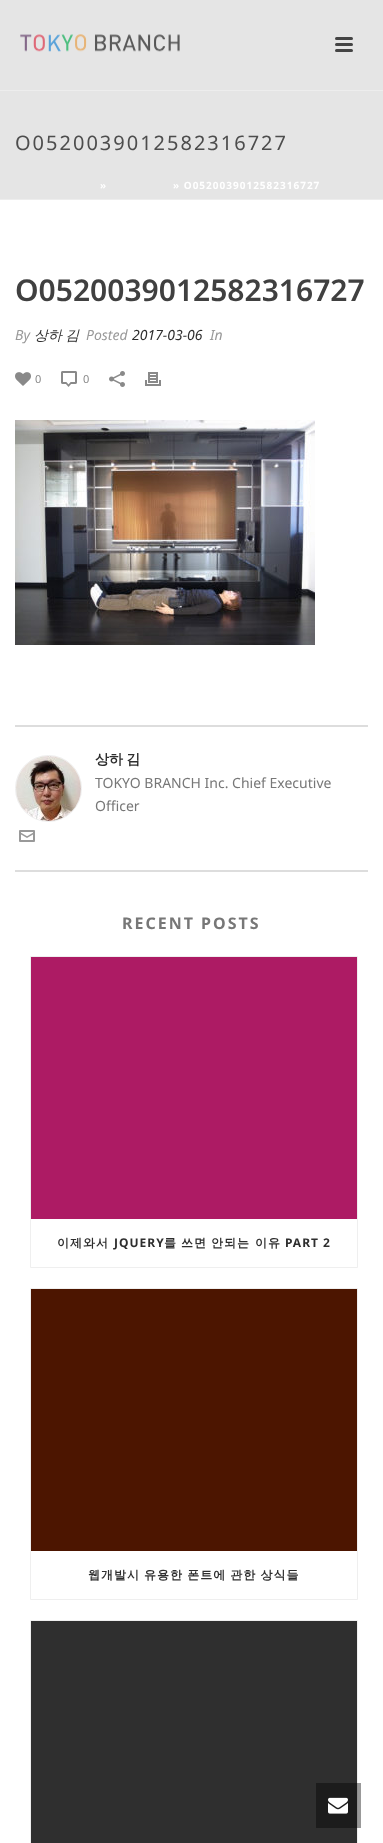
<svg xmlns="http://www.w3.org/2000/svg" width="383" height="1843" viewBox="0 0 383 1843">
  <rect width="100%" height="100%" fill="#fff"/>
  <path d="M0 0h383v199H0z" fill="#e5e5e5"/>
  <path d="M0 199h383v1H0z" fill="#ededed"/>
  <path d="M0 90h383v1H0z" fill="#ededed"/>
  <image x="20" y="34" width="160" height="18" href="img/1.png"/>
  <rect x="335" y="37" width="18" height="3" rx="1.5" fill="#444"/>
  <rect x="335" y="43" width="18" height="3" rx="1.5" fill="#444"/>
  <rect x="335" y="49" width="18" height="3" rx="1.5" fill="#444"/>
  <image x="15" y="372" width="16" height="14" href="img/2.png"/>
  <image x="61" y="371" width="16" height="16" href="img/3.png"/>
  <image x="109" y="371" width="16" height="16" href="img/4.png"/>
  <image x="145" y="372" width="16" height="14" href="img/5.png"/>
  <image x="15" y="420" width="300" height="225" href="img/6.png"/>
  <path d="M15 725h353v2H15z" fill="#ddd"/>
  <path d="M15 870h353v2H15z" fill="#ddd"/>
  <circle cx="48.5" cy="788.5" r="33" fill="none" stroke="#eee"/>
  <image x="16" y="756" width="65" height="65" href="img/7.png"/>
  <image x="19" y="830" width="16" height="12" href="img/8.png"/>
  <path d="M30.5 956.5h327v311H30.5z" fill="none" stroke="#efefef"/>
  <path d="M31 957h326v262H31z" fill="#ad1b64"/>
  <path d="M30.5 1288.5h327v311H30.5z" fill="none" stroke="#efefef"/>
  <path d="M31 1289h326v262H31z" fill="#4c1500"/>
  <path d="M30.5 1620.5h327v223H30.5z" fill="none" stroke="#efefef"/>
  <path d="M31 1621h326v222H31z" fill="#2f2f2f"/>
  <path d="M316 1783h45v45H316z" fill="#00000066"/>
  <image x="328" y="1797" width="20" height="17" href="img/9.png"/>
  <text x="15" y="150" font-family="Noto Sans" font-size="20" letter-spacing="2" fill="#4d4d4d">O0520039012582316727</text>
  <g font-family="Noto Sans" font-size="10" font-weight="bold" letter-spacing="1" fill="#fff">
    <text x="100" y="189">»</text>
    <text x="173" y="189">» O0520039012582316727</text>
  </g>
  <text x="15" y="301" font-family="Noto Sans" font-size="30" font-weight="600" fill="#404040">O0520039012582316727</text>
  <text x="15" y="340" font-family="Noto Sans" font-size="14" font-style="italic" fill="#999">By</text>
  <text x="34" y="340" word-spacing="-1" font-family="WenQuanYi Zen Hei" font-size="14" font-weight="500" font-style="italic" fill="#2e2e2e">상하 김</text>
  <text x="86" y="340" font-family="Noto Sans" font-size="14" font-style="italic" fill="#999">Posted</text>
  <text x="132" y="340" font-family="Noto Sans" font-size="14" font-style="italic" fill="#2e2e2e">2017-03-06</text>
  <text x="210" y="340" font-family="Noto Sans" font-size="14" font-style="italic" fill="#999">In</text>
  <g font-family="Noto Sans" font-size="11" fill="#898989">
    <text x="35" y="383">0</text>
    <text x="83" y="383">0</text>
  </g>
  <text x="95" y="764" word-spacing="-1" font-family="WenQuanYi Zen Hei" font-size="14" font-weight="bold" fill="#2e2e2e">상하 김</text>
  <g font-family="Noto Sans" font-size="14" fill="#777">
    <text x="95" y="788">TOKYO BRANCH Inc. Chief Executive</text>
    <text x="95" y="811">Officer</text>
  </g>
  <text x="122" y="929" font-family="Noto Sans" font-size="16" font-weight="bold" letter-spacing="2" fill="#777">RECENT POSTS</text>
  <text x="57" y="1247" font-family="WenQuanYi Zen Hei" font-size="12" font-weight="bold" letter-spacing="1" fill="#2e2e2e">이제와서</text>
  <text x="114" y="1247" font-family="Noto Sans" font-size="12" font-weight="bold" letter-spacing="1" fill="#2e2e2e">JQUERY</text>
  <g font-family="WenQuanYi Zen Hei" font-size="12" font-weight="bold" letter-spacing="1" fill="#2e2e2e">
    <text x="164" y="1247">를</text>
    <text x="181" y="1247">쓰면</text>
    <text x="211" y="1247">안되는</text>
    <text x="255" y="1247">이유</text>
  </g>
  <text x="285" y="1247" font-family="Noto Sans" font-size="12" font-weight="bold" letter-spacing="1" fill="#2e2e2e">PART 2</text>
  <text x="88" y="1579" word-spacing="-0.5" font-family="WenQuanYi Zen Hei" font-size="12" font-weight="bold" letter-spacing="1" fill="#2e2e2e">웹개발시 유용한 폰트에 관한 상식들</text>
</svg>
